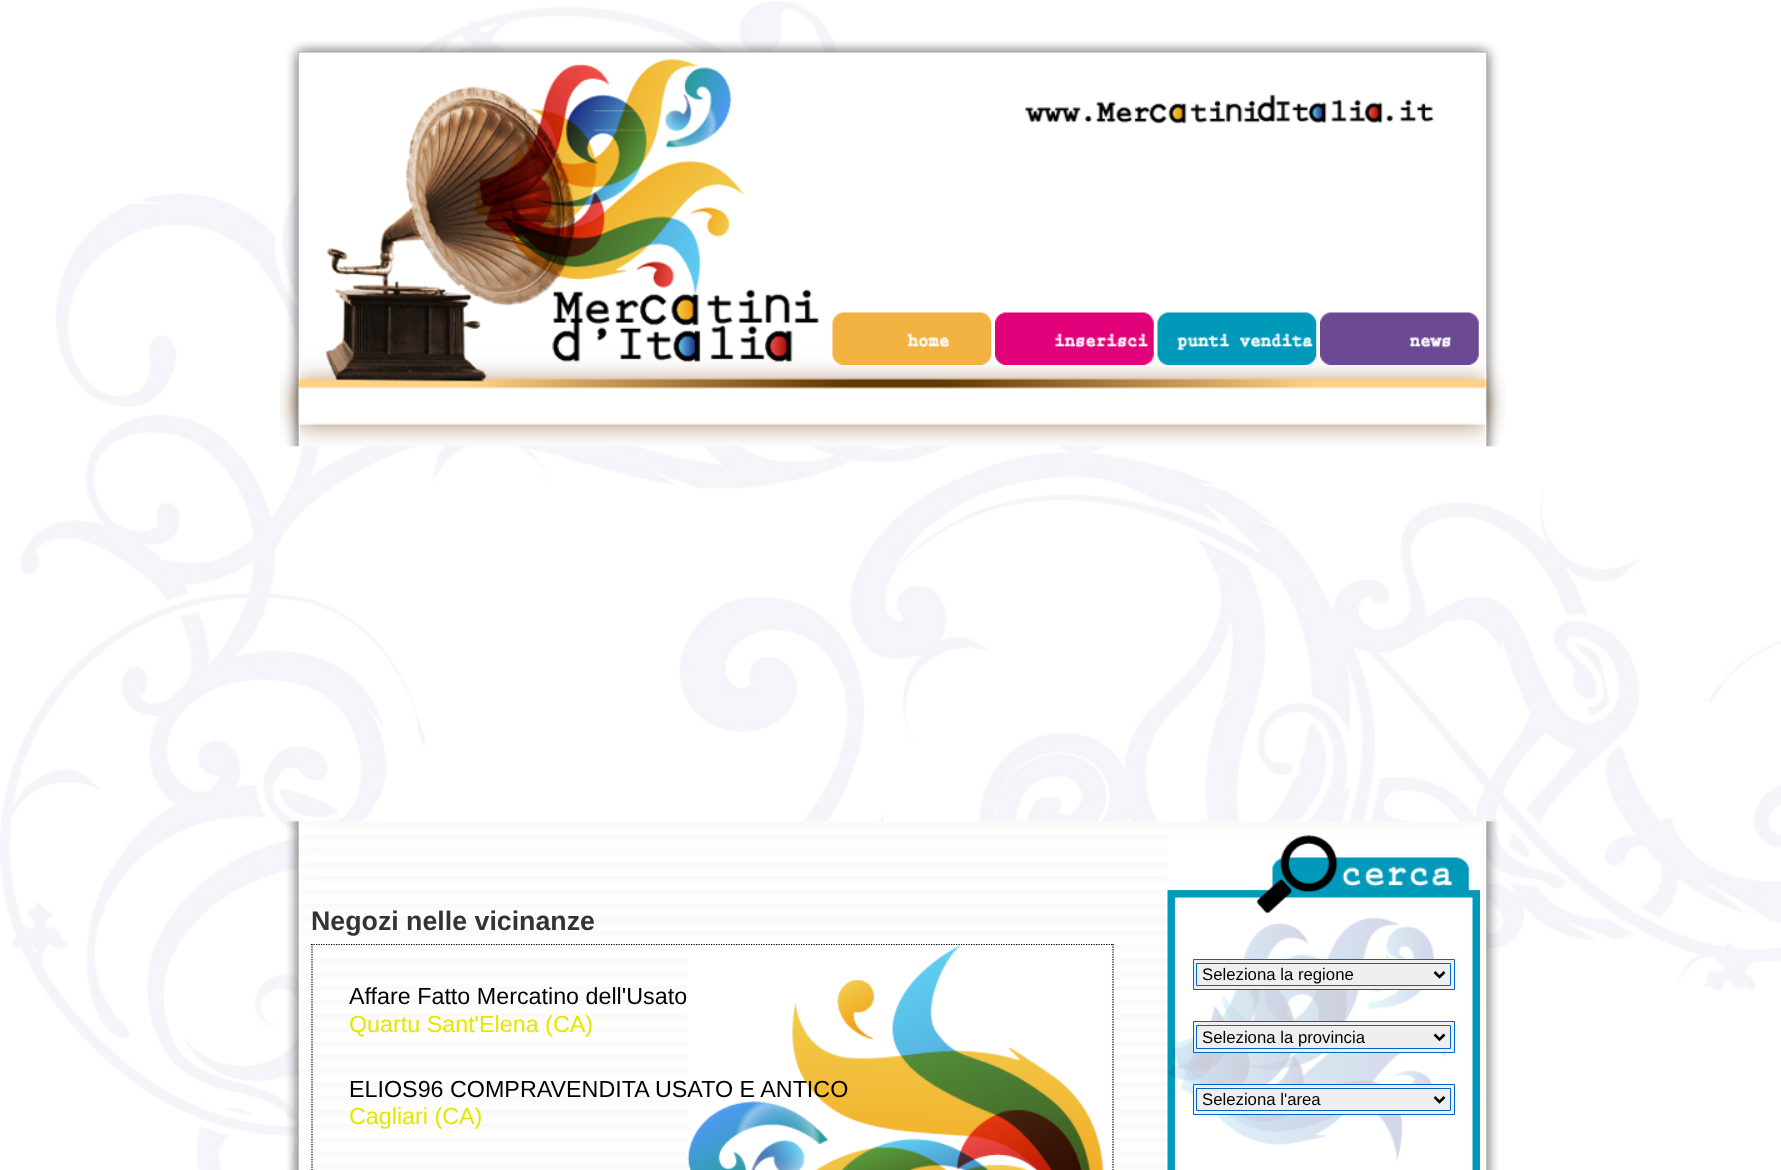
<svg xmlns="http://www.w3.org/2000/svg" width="1781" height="1170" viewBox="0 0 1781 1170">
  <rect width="100%" height="100%" fill="#fff"/>
  <image x="0" y="1" width="1781" height="1169" href="img/1.png"/>
  <image x="280" y="41" width="1225" height="406" href="img/2.png"/>
  <image x="832" y="312" width="160" height="53" href="img/3.png"/>
  <image x="995" y="312" width="159" height="53" href="img/4.png"/>
  <image x="1157" y="312" width="160" height="53" href="img/5.png"/>
  <image x="1320" y="312" width="159" height="53" href="img/6.png"/>
  <image x="286" y="821" width="1213" height="349" href="img/7.png"/>
  <image x="687" y="945" width="424" height="225" href="img/8.png"/>
  <path d="M311 944.5H1114" fill="none" stroke="#000" stroke-width="1.2" stroke-dasharray="1.25 1.25"/>
  <path d="M1113 944V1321" fill="none" stroke="#000" stroke-width="1.2" stroke-dasharray="1.25 1.25"/>
  <path d="M312 944V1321" fill="none" stroke="#000" stroke-width="1.2" stroke-dasharray="1.25 1.25"/>
  <image x="1167" y="834" width="313" height="336" href="img/9.png"/>
  <path d="M1193.5 959.5h261v30H1193.5z" fill="#efefef" stroke="#06c"/>
  <path d="M1196.5 963.5h254v22H1196.5z" fill="none" stroke="#06c"/>
  <path d="M1434.5 972L1439.5 977L1444.5 972" fill="none" stroke="#000" stroke-width="2.5"/>
  <path d="M1193.5 1021.5h261v31H1193.5z" fill="#efefef" stroke="#06c"/>
  <path d="M1196.5 1025.5h254v23H1196.5z" fill="none" stroke="#06c"/>
  <path d="M1434.5 1034.5L1439.5 1039.5L1444.5 1034.5" fill="none" stroke="#000" stroke-width="2.5"/>
  <path d="M1193.5 1084.5h261v30H1193.5z" fill="#efefef" stroke="#06c"/>
  <path d="M1196.5 1088.5h254v22H1196.5z" fill="none" stroke="#06c"/>
  <path d="M1434.5 1097L1439.5 1102L1444.5 1097" fill="none" stroke="#000" stroke-width="2.5"/>
  <text x="311" y="930" font-family="Liberation Sans" font-size="26.75" font-weight="bold" fill="#333">Negozi nelle vicinanze</text>
  <text x="349" y="1004" font-family="Liberation Sans" font-size="23.3" fill="#000">Affare Fatto Mercatino dell'Usato</text>
  <text x="349" y="1032" font-family="Liberation Sans" font-size="23.3" fill="#e6e600">Quartu Sant'Elena (CA)</text>
  <text x="349" y="1097" font-family="Liberation Sans" font-size="23.3" fill="#000">ELIOS96 COMPRAVENDITA USATO E ANTICO</text>
  <text x="349" y="1124" font-family="Liberation Sans" font-size="23.3" fill="#e6e600">Cagliari (CA)</text>
  <g font-family="Liberation Sans" font-size="16.75" fill="#000">
    <text x="1202" y="980">Seleziona la regione</text>
    <text x="1202" y="1043">Seleziona la provincia</text>
    <text x="1202" y="1105">Seleziona l'area</text>
  </g>
</svg>
